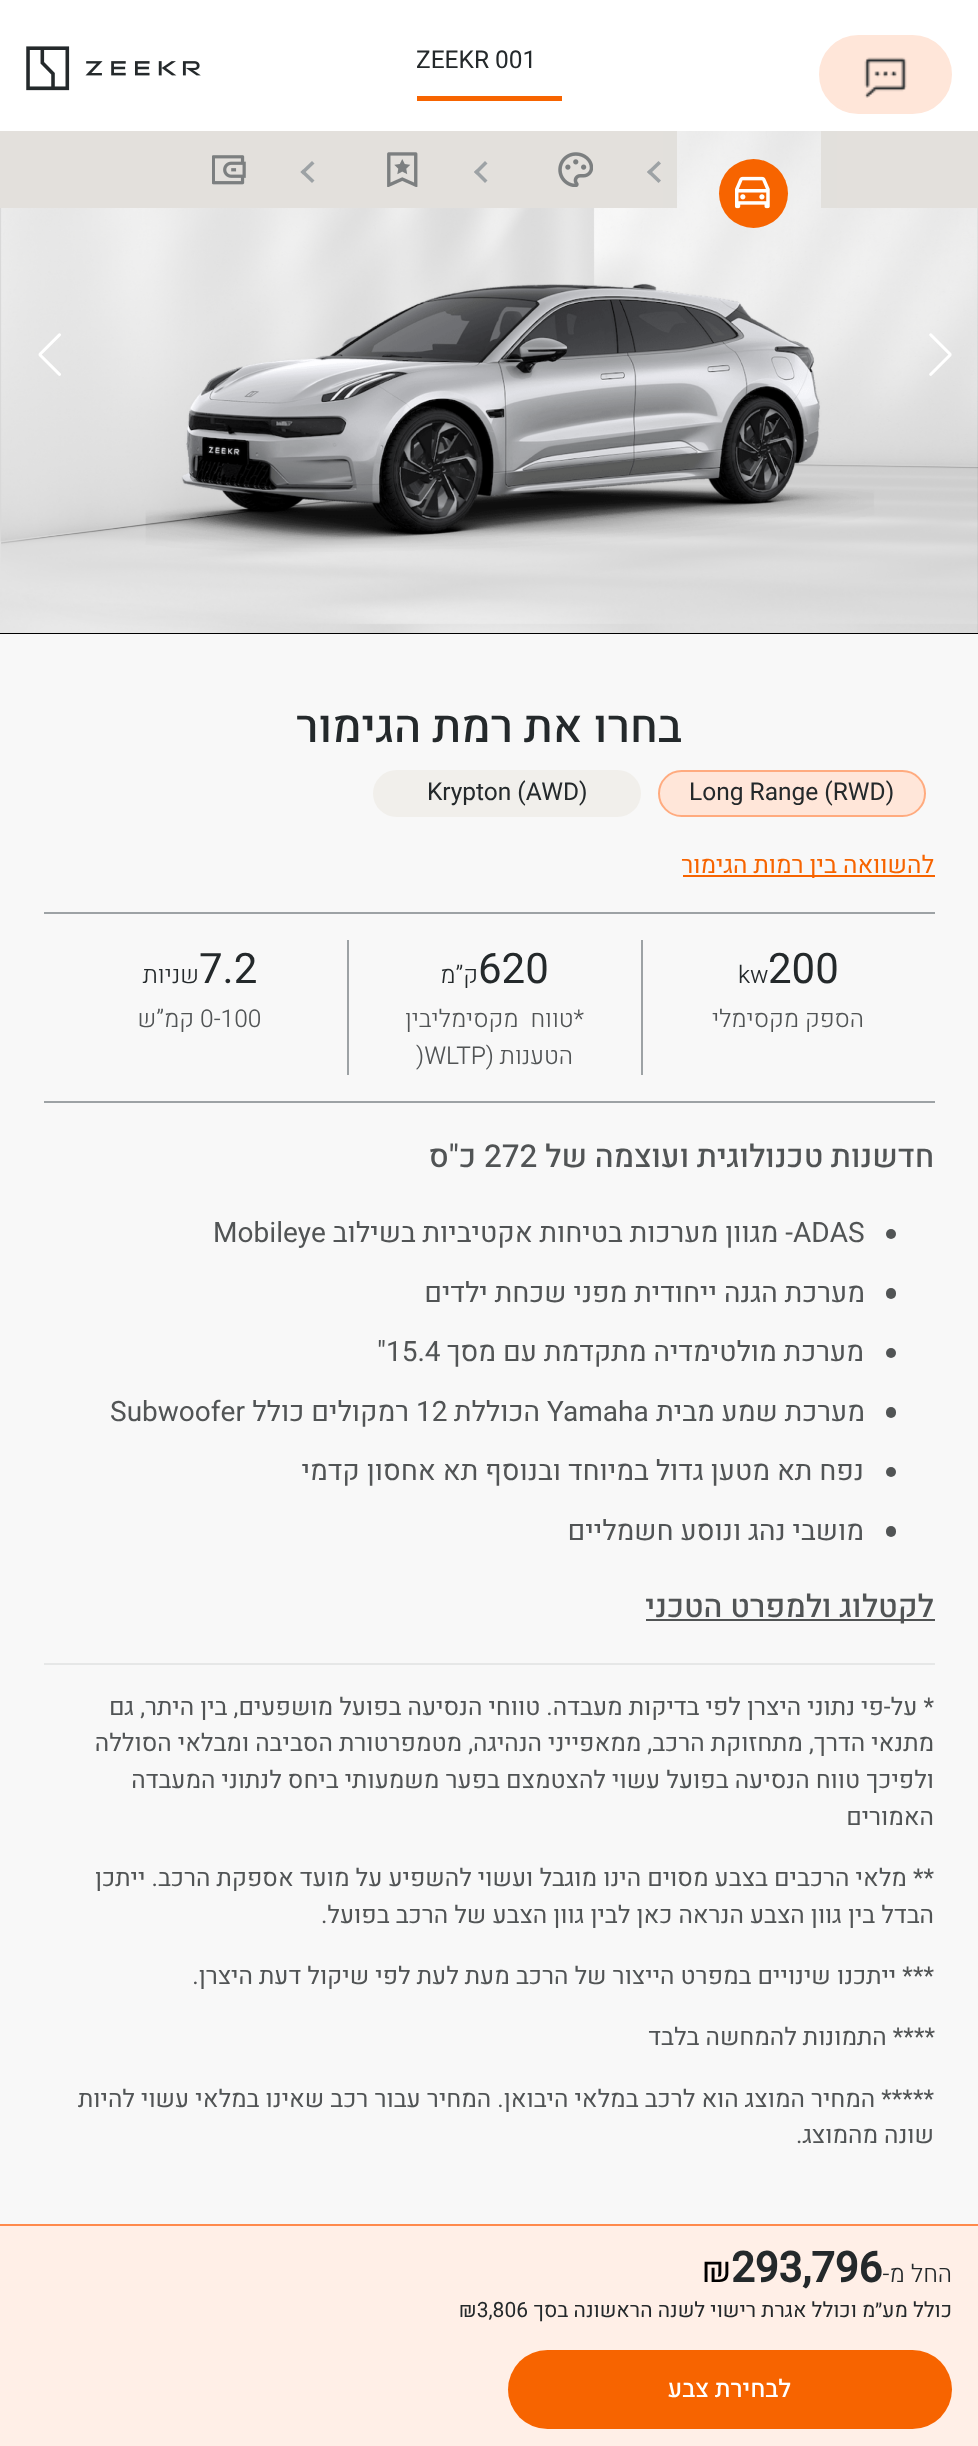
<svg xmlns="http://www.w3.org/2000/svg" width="978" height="2446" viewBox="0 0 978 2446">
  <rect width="100%" height="100%" fill="#f8f8f8"/>
  <path d="M0 0h978v131H0z" fill="#fff"/>
  <rect x="821" y="37" width="129" height="75" rx="37.5" fill="#ffe6d9" stroke="#ffe6d9" stroke-width="4"/>
  <image x="864" y="57" width="43" height="41" href="img/1.png"/>
  <image x="26" y="46" width="175" height="45" href="img/2.png"/>
  <path d="M417 96h145v5H417z" fill="#f76400"/>
  <path d="M0 208h978v426H0z" fill="#000"/>
  <image x="0" y="131" width="978" height="502" href="img/3.png"/>
  <image x="929" y="333" width="23" height="43" href="img/4.png"/>
  <image x="38" y="333" width="23" height="43" href="img/5.png"/>
  <path d="M837 131h141v77H837z" fill="#e3e0dc"/>
  <path d="M821 131h16v77H821z" fill="#e2e0dc"/>
  <circle cx="753.5" cy="193.5" r="34.5" fill="#f76400"/>
  <image x="735" y="176" width="35" height="33" href="img/6.png"/>
  <path d="M663 131h14v77H663z" fill="#e2e0dc"/>
  <path d="M144 131h519v77H144z" fill="#e3e0dc"/>
  <path d="M661 180.5L658.5 183L647 172L649.5 169.5Z" fill="#9da2a5"/>
  <path d="M661 163.5L649.5 174.5L647 172L658.5 161Z" fill="#9da2a5"/>
  <image x="558" y="152" width="35" height="35" href="img/7.png"/>
  <path d="M487.5 180.5L485 183L474 172L476.5 169.5Z" fill="#9da2a5"/>
  <path d="M487.5 163.5L476.5 174.5L474 172L485 161Z" fill="#9da2a5"/>
  <image x="387" y="152" width="31" height="35" href="img/8.png"/>
  <path d="M314.5 180.5L312 183L300.5 172L303 169.5Z" fill="#9da2a5"/>
  <path d="M314.5 163.5L303 174.5L300.5 172L312 161Z" fill="#9da2a5"/>
  <image x="212" y="155" width="34" height="30" href="img/9.png"/>
  <path d="M0 131h144v77H0z" fill="#e3e0dc"/>
  <rect x="659" y="771" width="266" height="45" rx="22.5" fill="#ffe6d9" stroke="#ffab7f" stroke-width="2"/>
  <rect x="373" y="770" width="268" height="47" rx="23.5" fill="#f1efeb"/>
  <path d="M683 875h252v2H683z" fill="#f76400"/>
  <path d="M44 912h891v2H44z" fill="#9da2a5"/>
  <path d="M44 1101h891v2H44z" fill="#9da2a5"/>
  <path d="M641 940h2v135H641z" fill="#9da2a5"/>
  <path d="M347 940h2v135H347z" fill="#9da2a5"/>
  <path d="M44 1663h891v2H44z" fill="#e6e7e7"/>
  <circle cx="891" cy="1234" r="5" fill="#515455"/>
  <rect x="886" y="1288" width="10" height="11" rx="5" fill="#515455"/>
  <circle cx="891" cy="1353" r="5" fill="#515455"/>
  <rect x="886" y="1407" width="10" height="11" rx="5" fill="#515455"/>
  <circle cx="891" cy="1472" r="5" fill="#515455"/>
  <rect x="886" y="1526" width="10" height="11" rx="5" fill="#515455"/>
  <path d="M646 1619h289v2H646z" fill="#515455"/>
  <path d="M0 2226h978v220H0z" fill="#ffefe7"/>
  <path d="M0 2224h978v2H0z" fill="#ff8a4c"/>
  <rect x="508" y="2350" width="444" height="79" rx="39.5" fill="#f76400"/>
  <text x="416" y="68" font-family="Heebo" font-size="24.5" fill="#24292b">ZEEKR 001</text>
  <text x="682" y="742" font-family="Heebo" font-size="45.5" font-weight="500" direction="rtl" fill="#24292b">בחרו את רמת הגימור</text>
  <g font-family="Heebo" font-size="24.5" fill="#24292b">
    <text x="689" y="800">Long Range (RWD)</text>
    <text x="427" y="800">Krypton (AWD)</text>
  </g>
  <text x="934" y="873" font-family="Heebo" font-size="24.5" direction="rtl" fill="#f76400">להשוואה בין רמות הגימור</text>
  <text x="768" y="983" font-family="Heebo" font-size="42" fill="#24292b">200</text>
  <text x="738" y="983" font-family="Heebo" font-size="24.5" font-weight="300" fill="#24292b">kw</text>
  <text x="864" y="1027" font-family="Heebo" font-size="24.5" font-weight="300" direction="rtl" fill="#515455">הספק מקסימלי</text>
  <text x="478" y="983" font-family="Heebo" font-size="42" fill="#24292b">620</text>
  <text x="478" y="983" font-family="Heebo" font-size="24.5" font-weight="300" direction="rtl" fill="#24292b">ק”מ</text>
  <g font-family="Heebo" font-size="24.5" font-weight="300" direction="rtl" fill="#515455">
    <text x="584" y="1027" word-spacing="6">*טווח מקסימליבין</text>
    <text x="573" y="1064">הטענות (</text>
  </g>
  <text x="416" y="1064" font-family="Heebo" font-size="24.5" font-weight="300" fill="#515455">)WLTP</text>
  <text x="199" y="983" font-family="Heebo" font-size="42" fill="#24292b">7.2</text>
  <text x="199" y="983" font-family="Heebo" font-size="24.5" font-weight="300" direction="rtl" fill="#24292b">שניות</text>
  <text x="200" y="1027" font-family="Heebo" font-size="24.5" font-weight="300" fill="#515455">0-100</text>
  <text x="194" y="1027" font-family="Heebo" font-size="24.5" font-weight="300" direction="rtl" fill="#515455">קמ”ש</text>
  <text x="934" y="1167" font-family="Heebo" font-size="31.5" font-weight="500" direction="rtl" fill="#515455">חדשנות טכנולוגית ועוצמה של</text>
  <text x="484" y="1167" font-family="Heebo" font-size="31.5" font-weight="500" fill="#515455">272</text>
  <text x="476" y="1167" font-family="Heebo" font-size="31.5" font-weight="500" direction="rtl" fill="#515455">כ"ס</text>
  <text x="793" y="1242" font-family="Heebo" font-size="28" fill="#515455">ADAS</text>
  <text x="793" y="1242" font-family="Heebo" font-size="28" direction="rtl" fill="#515455">- מגוון מערכות בטיחות אקטיביות בשילוב</text>
  <text x="213" y="1242" font-family="Heebo" font-size="28" fill="#515455">Mobileye</text>
  <g font-family="Heebo" font-size="28" direction="rtl" fill="#515455">
    <text x="865" y="1302">מערכת הגנה ייחודית מפני שכחת ילדים</text>
    <text x="864" y="1361">מערכת מולטימדיה מתקדמת עם מסך</text>
  </g>
  <text x="377" y="1361" font-family="Heebo" font-size="28" fill="#515455">"15.4</text>
  <text x="865" y="1421" font-family="Heebo" font-size="28" direction="rtl" fill="#515455">מערכת שמע מבית</text>
  <text x="547" y="1421" font-family="Heebo" font-size="28" fill="#515455">Yamaha</text>
  <text x="540" y="1421" font-family="Heebo" font-size="28" direction="rtl" fill="#515455">הכוללת</text>
  <text x="416" y="1421" font-family="Heebo" font-size="28" fill="#515455">12</text>
  <text x="409" y="1421" font-family="Heebo" font-size="28" direction="rtl" fill="#515455">רמקולים כולל</text>
  <text x="110" y="1421" font-family="Heebo" font-size="28" fill="#515455">Subwoofer</text>
  <g font-family="Heebo" font-size="28" direction="rtl" fill="#515455">
    <text x="864" y="1480">נפח תא מטען גדול במיוחד ובנוסף תא אחסון קדמי</text>
    <text x="864" y="1540">מושבי נהג ונוסע חשמליים</text>
  </g>
  <text x="934" y="1617" font-family="Heebo" font-size="31.5" font-weight="500" direction="rtl" fill="#515455">לקטלוג ולמפרט הטכני</text>
  <g font-family="Heebo" font-size="24.5" direction="rtl" fill="#515455">
    <text x="934" y="1715">* על-פי נתוני היצרן לפי בדיקות מעבדה. טווחי הנסיעה בפועל מושפעים, בין היתר, גם</text>
    <text x="934" y="1751">מתנאי הדרך, מתחזוקת הרכב, ממאפייני הנהיגה, מטמפרטורת הסביבה ומבלאי הסוללה</text>
    <text x="934" y="1788">ולפיכך טווח הנסיעה בפועל עשוי להצטמצם בפער משמעותי ביחס לנתוני המעבדה</text>
    <text x="934" y="1825">האמורים</text>
    <text x="934" y="1886">** מלאי הרכבים בצבע מסוים הינו מוגבל ועשוי להשפיע על מועד אספקת הרכב. ייתכן</text>
    <text x="934" y="1923">הבדל בין גוון הצבע הנראה כאן לבין גוון הצבע של הרכב בפועל.</text>
    <text x="934" y="1984">*** ייתכנו שינויים במפרט הייצור של הרכב מעת לעת לפי שיקול דעת היצרן.</text>
    <text x="935" y="2045">**** התמונות להמחשה בלבד</text>
    <text x="934" y="2107">***** המחיר המוצג הוא לרכב במלאי היבואן. המחיר עבור רכב שאינו במלאי עשוי להיות</text>
    <text x="934" y="2143">שונה מהמוצג.</text>
  </g>
  <text x="952" y="2282" font-family="Heebo" font-size="24.5" font-weight="300" direction="rtl" fill="#24292b">החל מ-</text>
  <text x="731" y="2282" font-family="Heebo" font-size="42" font-weight="bold" fill="#24292b">293,796</text>
  <text x="702" y="2282" font-family="Heebo" font-size="35" fill="#000">₪</text>
  <text x="952" y="2317" font-family="Heebo" font-size="21" direction="rtl" fill="#24292b">כולל מע״מ וכולל אגרת רישוי לשנה הראשונה בסך</text>
  <text x="459" y="2317" font-family="Heebo" font-size="21" fill="#24292b">₪3,806</text>
  <text x="791" y="2397" font-family="Heebo" font-size="24.5" font-weight="500" direction="rtl" fill="#fff">לבחירת צבע</text>
</svg>
